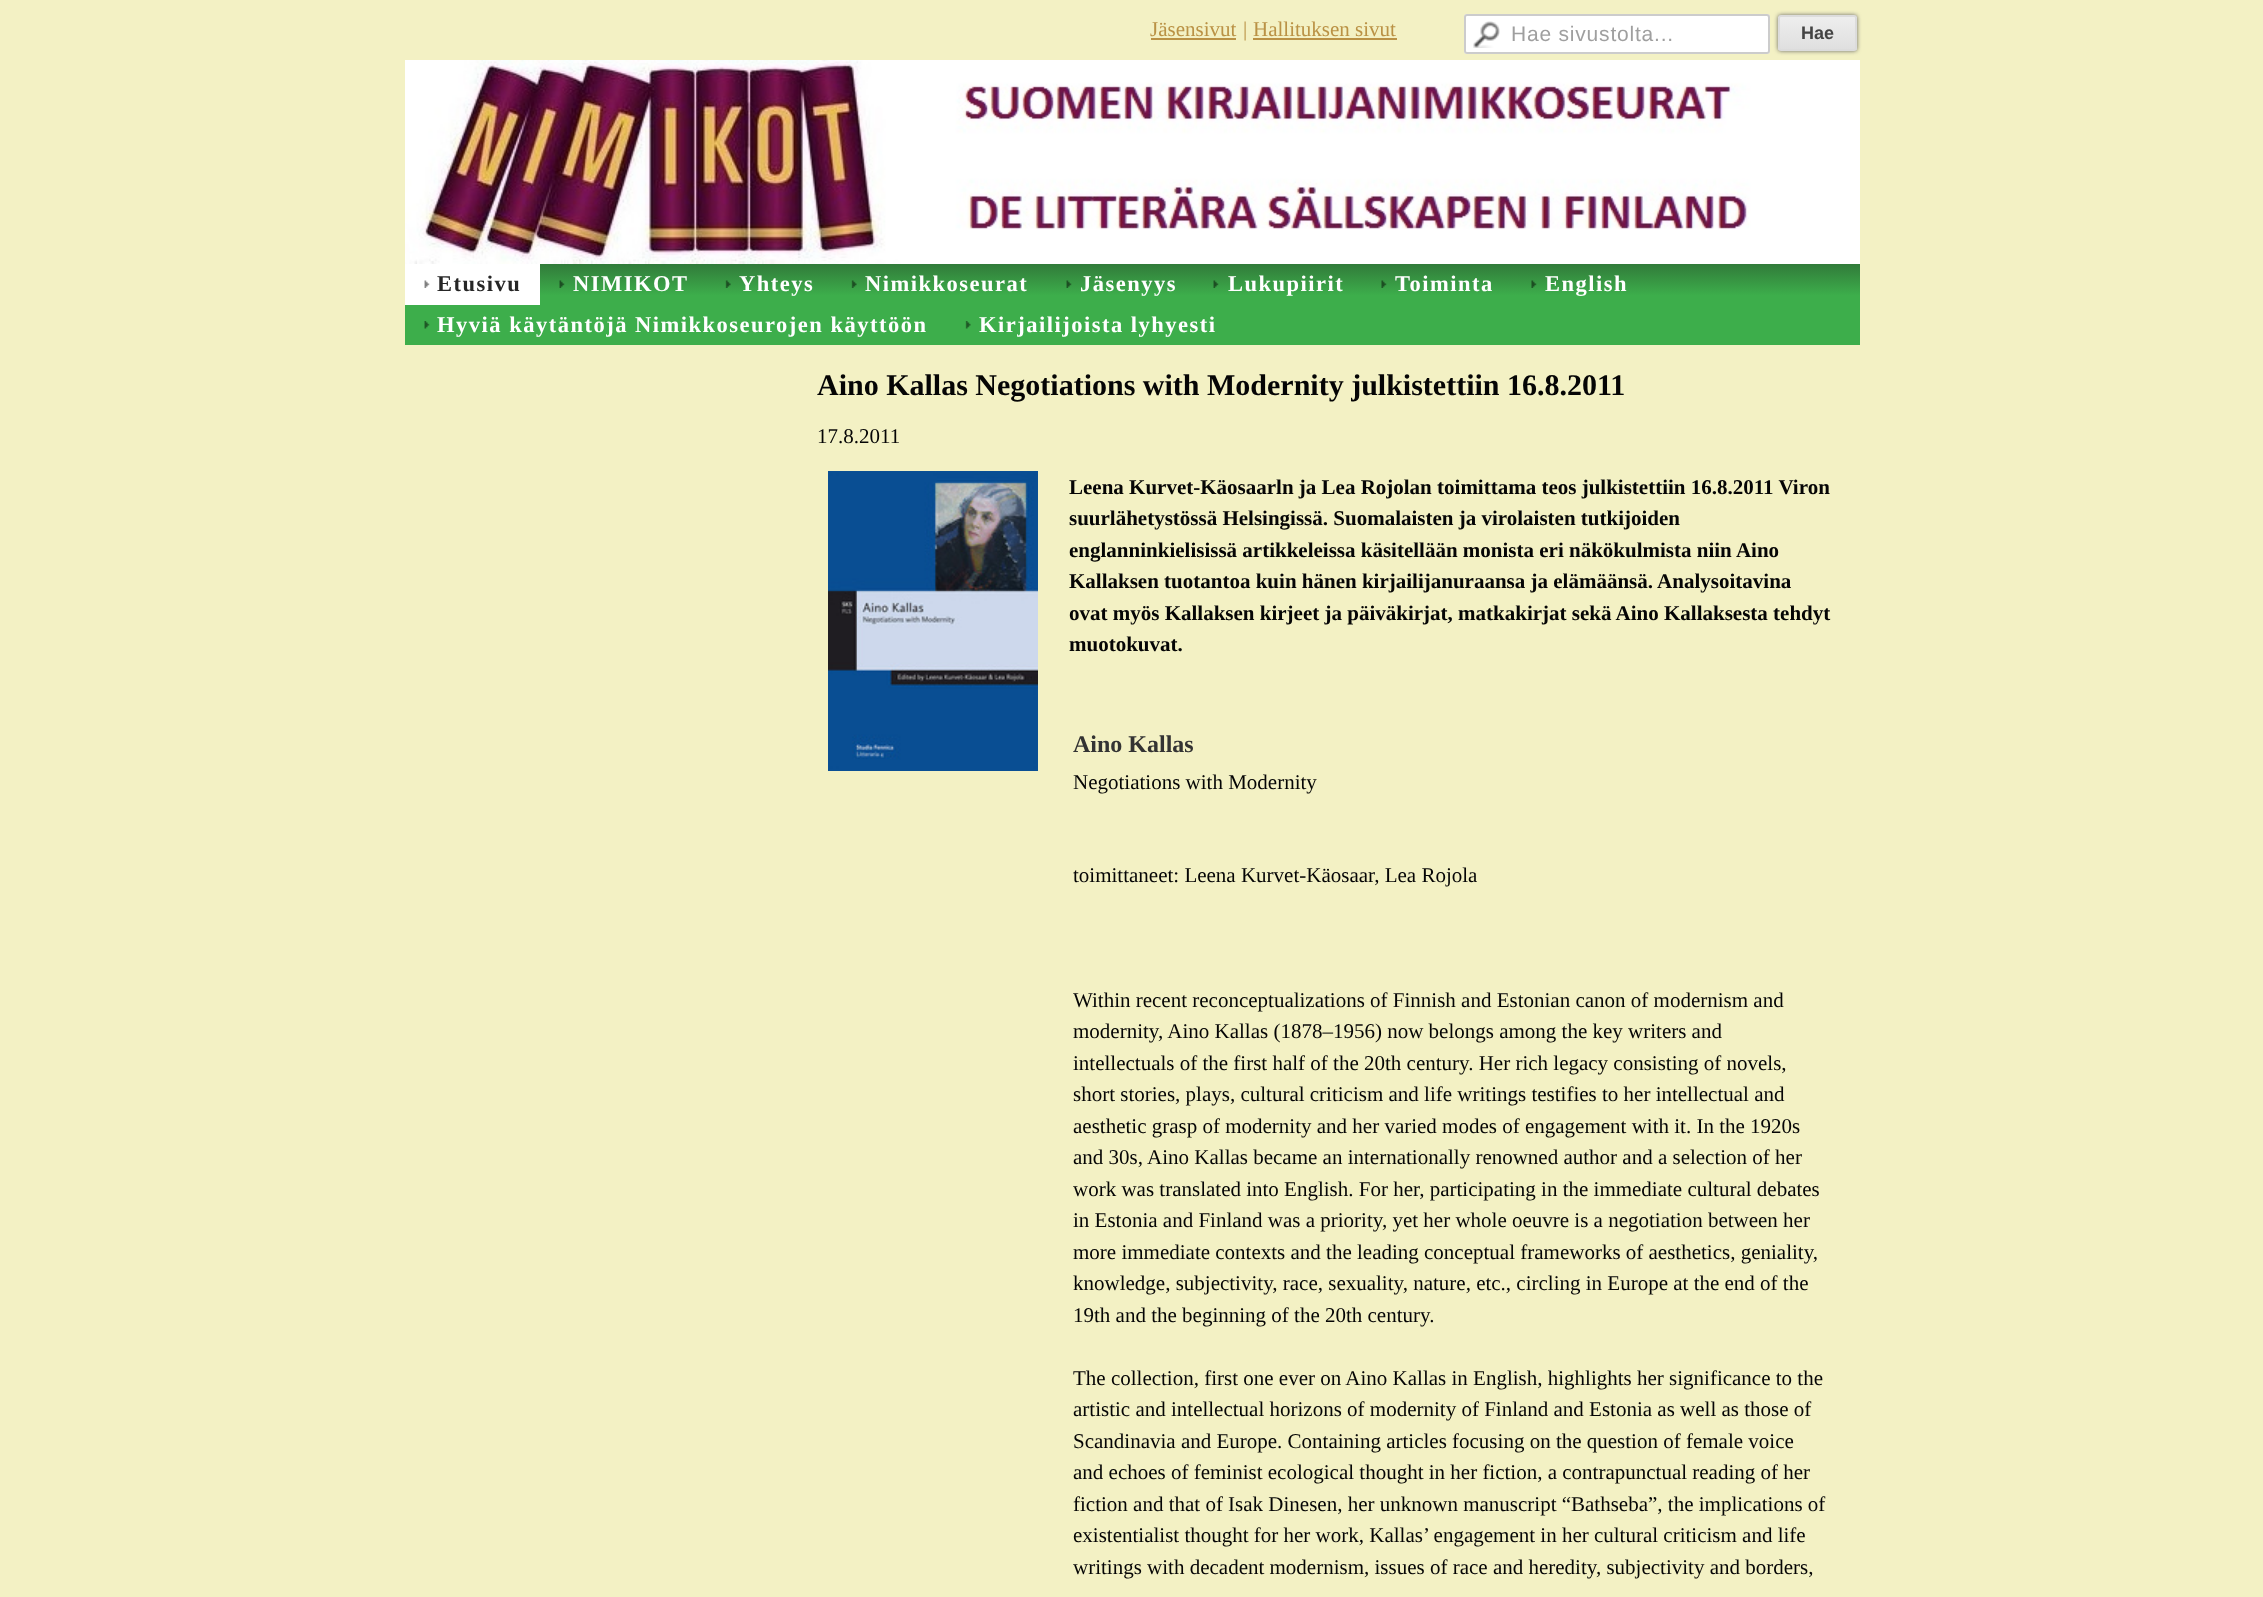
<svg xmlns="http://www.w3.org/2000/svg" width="2263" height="1597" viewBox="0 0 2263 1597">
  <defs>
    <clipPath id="clip1"><rect x="1778" y="15" width="79" height="36" rx="3"/></clipPath>
    <linearGradient id="g1" gradientUnits="userSpaceOnUse" x1="1779" y1="17" x2="1779" y2="50"><stop offset="0.05" stop-color="#ededed"/><stop offset="1" stop-color="#dfdfdf"/></linearGradient>
    <linearGradient id="g2" gradientUnits="userSpaceOnUse" x1="1133" y1="264" x2="1133" y2="345"><stop offset="0" stop-color="#317b3a"/><stop offset="0.39" stop-color="#3dae4b"/><stop offset="1" stop-color="#3dae4b"/></linearGradient>
  </defs>
  <rect width="100%" height="100%" fill="#f3f1c4"/>
  <path d="M1151 38h85v2H1151z" fill="#ba9245"/>
  <path d="M1253 38h144v2H1253z" fill="#ba9245"/>
  <rect x="1464" y="14" width="306" height="40" rx="3" fill="#fff"/>
  <image x="1473" y="21" width="27" height="27" href="img/1.png"/>
  <path d="M1467 16H1767C1769 16 1768 27 1768 29V53C1770 52 1769 47 1769 46V16L1768 15H1467C1466 16 1466 17 1466 18C1466 17 1466 16 1467 16Z" fill="#e6e6e6"/>
  <rect x="1465" y="15" width="304" height="38" rx="2" fill="none" stroke="#ccc" stroke-width="2"/>
  <rect x="1778" y="15" width="79" height="36" rx="3" fill="#666" filter="blur(2px)"/>
  <g clip-path="url(#clip1)">
    <path d="M1778 17h79v33H1778z" fill="url(#g1)"/>
  </g>
  <rect x="1779" y="16" width="77" height="34" rx="2" fill="none" stroke="#dcdcdc" stroke-width="2"/>
  <image x="405" y="60" width="1455" height="204" href="img/2.png"/>
  <path d="M405 264h1455v81H405z" fill="url(#g2)"/>
  <path d="M405 264h135v41H405z" fill="#fff"/>
  <image x="424" y="280" width="6" height="8" href="img/3.png"/>
  <image x="559" y="280" width="6" height="8" href="img/4.png"/>
  <image x="725" y="280" width="6" height="8" href="img/5.png"/>
  <image x="851" y="280" width="6" height="8" href="img/6.png"/>
  <image x="1066" y="280" width="6" height="8" href="img/4.png"/>
  <image x="1213" y="280" width="6" height="8" href="img/4.png"/>
  <image x="1381" y="280" width="6" height="8" href="img/7.png"/>
  <image x="1531" y="280" width="6" height="8" href="img/7.png"/>
  <image x="424" y="321" width="6" height="8" href="img/8.png"/>
  <image x="965" y="321" width="6" height="8" href="img/9.png"/>
  <image x="828" y="471" width="210" height="300" href="img/10.png"/>
  <g font-family="Liberation Serif" font-size="21" fill="#ba9245">
    <text x="1150" y="36">Jäsensivut</text>
    <text x="1243" y="36">|</text>
    <text x="1253" y="36">Hallituksen sivut</text>
  </g>
  <text x="1511" y="41" font-family="Liberation Sans" font-size="21" letter-spacing="0.8" fill="#9f9f9f">Hae sivustolta...</text>
  <text x="1801" y="39" font-family="Liberation Sans" font-size="18" font-weight="bold" fill="#444">Hae</text>
  <text x="437" y="291" font-family="Liberation Serif" font-size="22.5" font-weight="bold" letter-spacing="1.5" fill="#262626">Etusivu</text>
  <g font-family="Liberation Serif" font-size="22.5" font-weight="bold" letter-spacing="1.5" fill="#fff">
    <text x="573" y="291">NIMIKOT</text>
    <text x="739" y="291">Yhteys</text>
    <text x="865" y="291">Nimikkoseurat</text>
    <text x="1080" y="291">Jäsenyys</text>
    <text x="1228" y="291">Lukupiirit</text>
    <text x="1395" y="291">Toiminta</text>
    <text x="1545" y="291">English</text>
    <text x="437" y="332">Hyviä käytäntöjä Nimikkoseurojen käyttöön</text>
    <text x="979" y="332">Kirjailijoista lyhyesti</text>
  </g>
  <text x="817" y="395" font-family="Liberation Serif" font-size="30" font-weight="bold" fill="#050505">Aino Kallas Negotiations with Modernity julkistettiin 16.8.2011</text>
  <text x="817" y="443" font-family="Liberation Serif" font-size="21" fill="#050505">17.8.2011</text>
  <g font-family="Liberation Serif" font-size="21" font-weight="bold" fill="#050505">
    <text x="1069" y="494">Leena Kurvet-Käosaarln ja Lea Rojolan toimittama teos julkistettiin 16.8.2011 Viron</text>
    <text x="1069" y="525">suurlähetystössä Helsingissä. Suomalaisten ja virolaisten tutkijoiden</text>
    <text x="1069" y="557">englanninkielisissä artikkeleissa käsitellään monista eri näkökulmista niin Aino</text>
    <text x="1069" y="588">Kallaksen tuotantoa kuin hänen kirjailijanuraansa ja elämäänsä. Analysoitavina</text>
    <text x="1069" y="620">ovat myös Kallaksen kirjeet ja päiväkirjat, matkakirjat sekä Aino Kallaksesta tehdyt</text>
    <text x="1069" y="651">muotokuvat.</text>
  </g>
  <text x="1073" y="752" font-family="Liberation Serif" font-size="24" font-weight="bold" fill="#333">Aino Kallas</text>
  <g font-family="Liberation Serif" font-size="21" fill="#050505">
    <text x="1073" y="789">Negotiations with Modernity</text>
    <text x="1073" y="882">toimittaneet: Leena Kurvet-Käosaar, Lea Rojola</text>
    <text x="1073" y="1007">Within recent reconceptualizations of Finnish and Estonian canon of modernism and</text>
    <text x="1073" y="1038">modernity, Aino Kallas (1878–1956) now belongs among the key writers and</text>
    <text x="1073" y="1070">intellectuals of the first half of the 20th century. Her rich legacy consisting of novels,</text>
    <text x="1073" y="1101">short stories, plays, cultural criticism and life writings testifies to her intellectual and</text>
    <text x="1073" y="1133">aesthetic grasp of modernity and her varied modes of engagement with it. In the 1920s</text>
    <text x="1073" y="1164">and 30s, Aino Kallas became an internationally renowned author and a selection of her</text>
    <text x="1073" y="1196">work was translated into English. For her, participating in the immediate cultural debates</text>
    <text x="1073" y="1227">in Estonia and Finland was a priority, yet her whole oeuvre is a negotiation between her</text>
    <text x="1073" y="1259">more immediate contexts and the leading conceptual frameworks of aesthetics, geniality,</text>
    <text x="1073" y="1290">knowledge, subjectivity, race, sexuality, nature, etc., circling in Europe at the end of the</text>
    <text x="1073" y="1322">19th and the beginning of the 20th century.</text>
    <text x="1073" y="1385">The collection, first one ever on Aino Kallas in English, highlights her significance to the</text>
    <text x="1073" y="1416">artistic and intellectual horizons of modernity of Finland and Estonia as well as those of</text>
    <text x="1073" y="1448">Scandinavia and Europe. Containing articles focusing on the question of female voice</text>
    <text x="1073" y="1479">and echoes of feminist ecological thought in her fiction, a contrapunctual reading of her</text>
    <text x="1073" y="1511">fiction and that of Isak Dinesen, her unknown manuscript “Bathseba”, the implications of</text>
    <text x="1073" y="1542">existentialist thought for her work, Kallas’ engagement in her cultural criticism and life</text>
    <text x="1073" y="1574">writings with decadent modernism, issues of race and heredity, subjectivity and borders,</text>
  </g>
</svg>
